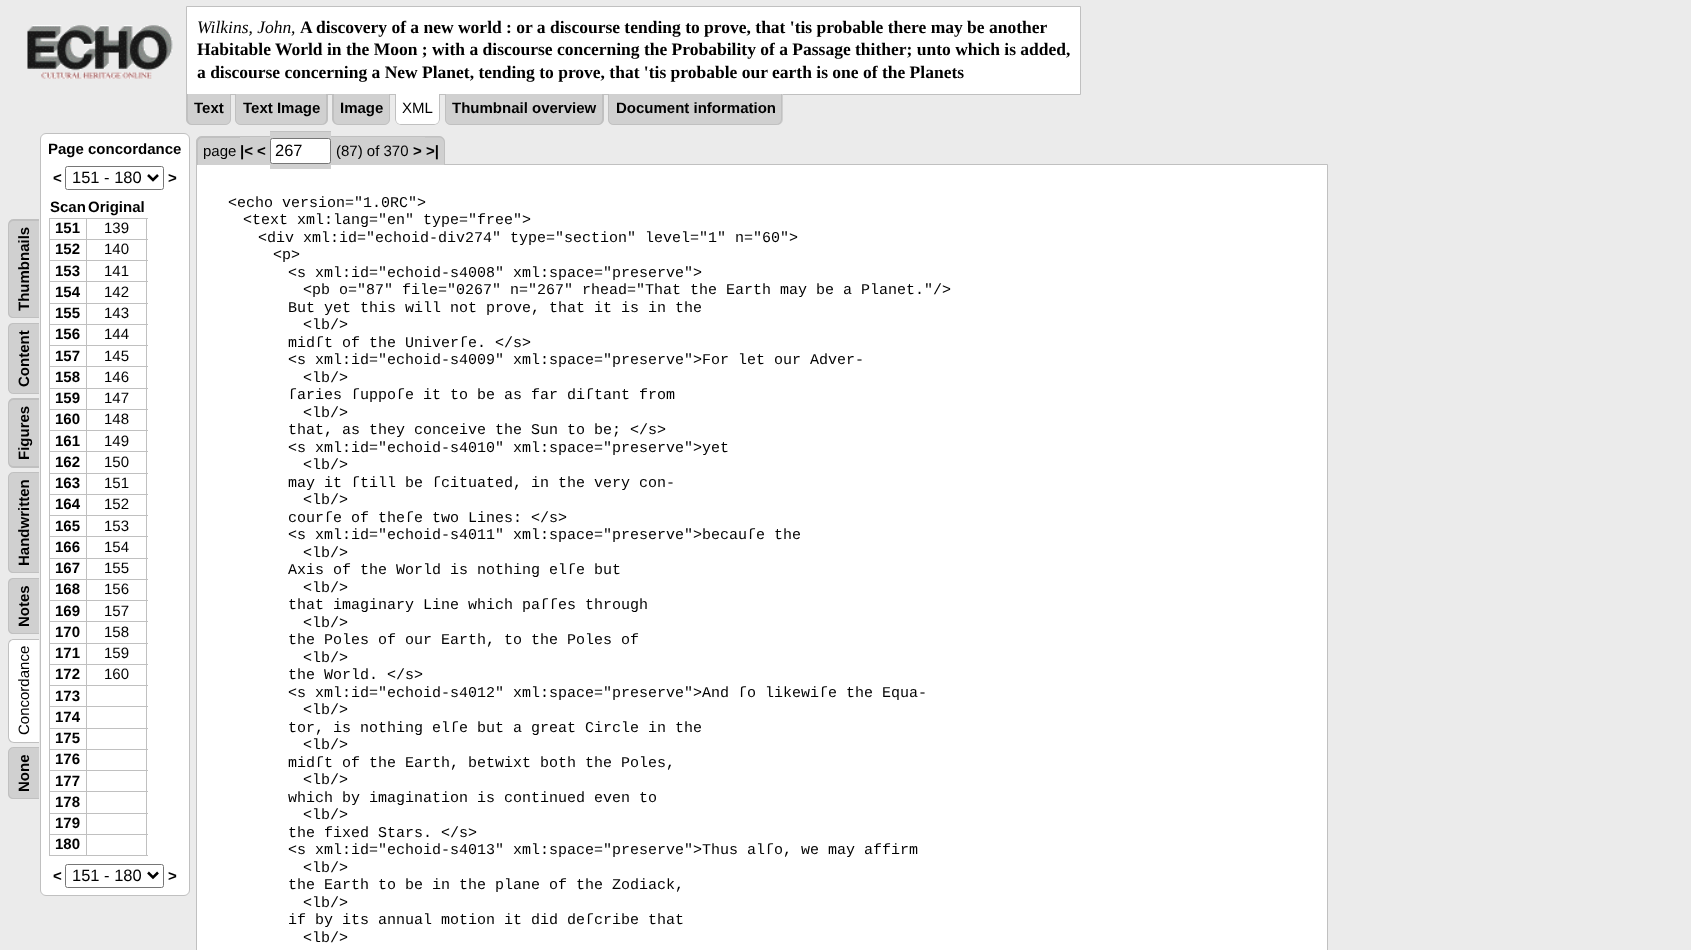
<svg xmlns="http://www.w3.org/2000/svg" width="1691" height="950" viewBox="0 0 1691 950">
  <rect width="100%" height="100%" fill="#ebebeb"/>
  <image x="27" y="25" width="146" height="54" href="img/1.png"/>
  <path d="M186.5 6.5h894v88H186.5z" fill="#fff" stroke="#c0c0c0"/>
  <path d="M186 94H231V119C231 122.5 228.5 125 225 125H192C188.5 125 186 122.5 186 119Z" fill="#d0d0d0"/>
  <path d="M186 94H231V119C231 122 228 125 225 125H192C189 125 186 122 186 119ZM188 94H230V119C230 122 228 124 225 124H192C190 124 188 122 188 119Z" fill="#c0c0c0" fill-rule="evenodd"/>
  <path d="M235 94H328V119C328 122.5 325.5 125 322 125H241C237.5 125 235 122.5 235 119Z" fill="#d0d0d0"/>
  <path d="M235 94H328V119C328 122 325 125 321 125H241C238 125 235 122 235 119ZM236 94H326V119C326 122 324 124 321 124H241C238 124 236 122 236 119Z" fill="#c0c0c0" fill-rule="evenodd"/>
  <path d="M333 94H390V119C390 122.5 387.5 125 384 125H339C335.5 125 333 122.5 333 119Z" fill="#d0d0d0"/>
  <path d="M332 94H390V119C390 122 387 125 384 125H339C335 125 332 122 332 119ZM334 94H389V119C389 122 387 124 384 124H339C336 124 334 122 334 119Z" fill="#c0c0c0" fill-rule="evenodd"/>
  <path d="M395 94H440V119C440 122.5 437.5 125 434 125H401C397.5 125 395 122.5 395 119Z" fill="#fff"/>
  <path d="M395 94H440V119C440 122 437 125 434 125H401C398 125 395 122 395 119ZM396 94H439V119C439 122 437 124 434 124H401C398 124 396 122 396 119Z" fill="#c0c0c0" fill-rule="evenodd"/>
  <path d="M445 94H604V119C604 122.5 601.5 125 598 125H451C447.5 125 445 122.5 445 119Z" fill="#d0d0d0"/>
  <path d="M445 94H604V119C604 122 601 125 598 125H451C448 125 445 122 445 119ZM446 94H602V119C602 122 600 124 598 124H451C448 124 446 122 446 119Z" fill="#c0c0c0" fill-rule="evenodd"/>
  <path d="M608 94H783V119C783 122.5 780.5 125 777 125H614C610.5 125 608 122.5 608 119Z" fill="#d0d0d0"/>
  <path d="M608 94H782V119C782 122 780 125 776 125H614C610 125 608 122 608 119ZM609 94H781V119C781 122 779 124 776 124H614C611 124 609 122 609 119Z" fill="#c0c0c0" fill-rule="evenodd"/>
  <path d="M8 312V226C8 222 10 219 14 219H39V318H14C10 318 8 316 8 312Z" fill="#d0d0d0"/>
  <path d="M8 312V226C8 222 10 219 14 219H39V318H14C10 318 8 316 8 312ZM9 312V226C9 223 11 221 14 221H39V317H14C11 317 9 315 9 312Z" fill="#c0c0c0" fill-rule="evenodd"/>
  <path d="M8 388V329C8 325 10 323 14 323H39V394H14C10 394 8 391 8 388Z" fill="#d0d0d0"/>
  <path d="M8 388V329C8 325 10 323 14 323H39V394H14C10 394 8 391 8 388ZM9 388V329C9 326 11 324 14 324H39V393H14C11 393 9 391 9 388Z" fill="#c0c0c0" fill-rule="evenodd"/>
  <path d="M8 461V405C8 401 10 398 14 398H39V468H14C10 468 8 465 8 461Z" fill="#d0d0d0"/>
  <path d="M8 461V405C8 401 10 398 14 398H39V468H14C10 468 8 465 8 461ZM9 461V405C9 402 11 400 14 400H39V466H14C11 466 9 464 9 461Z" fill="#c0c0c0" fill-rule="evenodd"/>
  <path d="M8 567V478C8 475 10 472 14 472H39V573H14C10 573 8 571 8 567Z" fill="#d0d0d0"/>
  <path d="M8 567V478C8 475 10 472 14 472H39V573H14C10 573 8 571 8 567ZM9 567V478C9 475 11 473 14 473H39V572H14C11 572 9 570 9 567Z" fill="#c0c0c0" fill-rule="evenodd"/>
  <path d="M8 628V584C8 580 10 578 14 578H39V634H14C10 634 8 632 8 628Z" fill="#d0d0d0"/>
  <path d="M8 628V584C8 580 10 578 14 578H39V634H14C10 634 8 632 8 628ZM9 628V584C9 581 11 579 14 579H39V633H14C11 633 9 631 9 628Z" fill="#c0c0c0" fill-rule="evenodd"/>
  <path d="M8 737V645C8 641 10 639 14 639H39V743H14C10 743 8 740 8 737Z" fill="#fff"/>
  <path d="M8 737V645C8 641 10 639 14 639H39V743H14C10 743 8 740 8 737ZM9 737V645C9 642 11 640 14 640H39V742H14C11 742 9 739 9 737Z" fill="#c0c0c0" fill-rule="evenodd"/>
  <path d="M8 793V753C8 750 10 747 14 747H39V799H14C10 799 8 797 8 793Z" fill="#d0d0d0"/>
  <path d="M8 793V753C8 750 10 747 14 747H39V799H14C10 799 8 797 8 793ZM9 793V753C9 750 11 748 14 748H39V798H14C11 798 9 796 9 793Z" fill="#c0c0c0" fill-rule="evenodd"/>
  <rect x="40.5" y="133.5" width="149" height="762" rx="5.5" fill="#fff" stroke="#c0c0c0"/>
  <rect x="65.5" y="166.5" width="98" height="23" rx="2" fill="none" stroke="#767676"/>
  <path d="M148 175L153 180L158 175" fill="none" stroke="#000" stroke-width="2.5"/>
  <path d="M86 218h62v1H86z" fill="#c0c0c0"/>
  <path d="M86 239h62v1H86z" fill="#c0c0c0"/>
  <path d="M86 260h62v1H86z" fill="#c0c0c0"/>
  <path d="M86 281h62v1H86z" fill="#c0c0c0"/>
  <path d="M86 303h62v1H86z" fill="#c0c0c0"/>
  <path d="M86 324h62v1H86z" fill="#c0c0c0"/>
  <path d="M86 345h62v1H86z" fill="#c0c0c0"/>
  <path d="M86 366h62v1H86z" fill="#c0c0c0"/>
  <path d="M86 388h62v1H86z" fill="#c0c0c0"/>
  <path d="M86 409h62v1H86z" fill="#c0c0c0"/>
  <path d="M86 430h62v1H86z" fill="#c0c0c0"/>
  <path d="M86 451h62v1H86z" fill="#c0c0c0"/>
  <path d="M86 473h62v1H86z" fill="#c0c0c0"/>
  <path d="M86 494h62v1H86z" fill="#c0c0c0"/>
  <path d="M86 515h62v1H86z" fill="#c0c0c0"/>
  <path d="M86 536h62v1H86z" fill="#c0c0c0"/>
  <path d="M86 558h62v1H86z" fill="#c0c0c0"/>
  <path d="M86 579h62v1H86z" fill="#c0c0c0"/>
  <path d="M86 600h62v1H86z" fill="#c0c0c0"/>
  <path d="M86 621h62v1H86z" fill="#c0c0c0"/>
  <path d="M86 643h62v1H86z" fill="#c0c0c0"/>
  <path d="M86 664h62v1H86z" fill="#c0c0c0"/>
  <path d="M86 685h62v1H86z" fill="#c0c0c0"/>
  <path d="M86 706h62v1H86z" fill="#c0c0c0"/>
  <path d="M86 728h62v1H86z" fill="#c0c0c0"/>
  <path d="M86 749h62v1H86z" fill="#c0c0c0"/>
  <path d="M86 770h62v1H86z" fill="#c0c0c0"/>
  <path d="M86 791h62v1H86z" fill="#c0c0c0"/>
  <path d="M86 813h62v1H86z" fill="#c0c0c0"/>
  <path d="M86 834h62v1H86z" fill="#c0c0c0"/>
  <path d="M146 834h1v22H146z" fill="#c0c0c0"/>
  <path d="M86 855h62v1H86z" fill="#c0c0c0"/>
  <path d="M86 834h1v22H86z" fill="#c0c0c0"/>
  <path d="M49 834h39v1H49z" fill="#c0c0c0"/>
  <path d="M86 813h1v22H86z" fill="#c0c0c0"/>
  <path d="M49 813h39v1H49z" fill="#c0c0c0"/>
  <path d="M86 791h1v23H86z" fill="#c0c0c0"/>
  <path d="M49 791h39v1H49z" fill="#c0c0c0"/>
  <path d="M86 770h1v23H86z" fill="#c0c0c0"/>
  <path d="M49 770h39v1H49z" fill="#c0c0c0"/>
  <path d="M86 749h1v22H86z" fill="#c0c0c0"/>
  <path d="M49 749h39v1H49z" fill="#c0c0c0"/>
  <path d="M86 728h1v22H86z" fill="#c0c0c0"/>
  <path d="M49 728h39v1H49z" fill="#c0c0c0"/>
  <path d="M86 706h1v23H86z" fill="#c0c0c0"/>
  <path d="M49 706h39v1H49z" fill="#c0c0c0"/>
  <path d="M86 685h1v23H86z" fill="#c0c0c0"/>
  <path d="M49 685h39v1H49z" fill="#c0c0c0"/>
  <path d="M86 664h1v22H86z" fill="#c0c0c0"/>
  <path d="M49 664h39v1H49z" fill="#c0c0c0"/>
  <path d="M86 643h1v22H86z" fill="#c0c0c0"/>
  <path d="M49 643h39v1H49z" fill="#c0c0c0"/>
  <path d="M86 621h1v23H86z" fill="#c0c0c0"/>
  <path d="M49 621h39v1H49z" fill="#c0c0c0"/>
  <path d="M86 600h1v23H86z" fill="#c0c0c0"/>
  <path d="M49 600h39v1H49z" fill="#c0c0c0"/>
  <path d="M86 579h1v22H86z" fill="#c0c0c0"/>
  <path d="M49 579h39v1H49z" fill="#c0c0c0"/>
  <path d="M86 558h1v22H86z" fill="#c0c0c0"/>
  <path d="M49 558h39v1H49z" fill="#c0c0c0"/>
  <path d="M86 536h1v23H86z" fill="#c0c0c0"/>
  <path d="M49 536h39v1H49z" fill="#c0c0c0"/>
  <path d="M86 515h1v23H86z" fill="#c0c0c0"/>
  <path d="M49 515h39v1H49z" fill="#c0c0c0"/>
  <path d="M86 494h1v22H86z" fill="#c0c0c0"/>
  <path d="M49 494h39v1H49z" fill="#c0c0c0"/>
  <path d="M86 473h1v22H86z" fill="#c0c0c0"/>
  <path d="M49 473h39v1H49z" fill="#c0c0c0"/>
  <path d="M86 451h1v23H86z" fill="#c0c0c0"/>
  <path d="M49 451h39v1H49z" fill="#c0c0c0"/>
  <path d="M86 430h1v23H86z" fill="#c0c0c0"/>
  <path d="M49 430h39v1H49z" fill="#c0c0c0"/>
  <path d="M86 409h1v22H86z" fill="#c0c0c0"/>
  <path d="M49 409h39v1H49z" fill="#c0c0c0"/>
  <path d="M86 388h1v22H86z" fill="#c0c0c0"/>
  <path d="M49 388h39v1H49z" fill="#c0c0c0"/>
  <path d="M86 366h1v23H86z" fill="#c0c0c0"/>
  <path d="M49 366h39v1H49z" fill="#c0c0c0"/>
  <path d="M86 345h1v23H86z" fill="#c0c0c0"/>
  <path d="M49 345h39v1H49z" fill="#c0c0c0"/>
  <path d="M86 324h1v22H86z" fill="#c0c0c0"/>
  <path d="M49 324h39v1H49z" fill="#c0c0c0"/>
  <path d="M86 303h1v22H86z" fill="#c0c0c0"/>
  <path d="M49 303h39v1H49z" fill="#c0c0c0"/>
  <path d="M86 281h1v23H86z" fill="#c0c0c0"/>
  <path d="M49 281h39v1H49z" fill="#c0c0c0"/>
  <path d="M86 260h1v23H86z" fill="#c0c0c0"/>
  <path d="M49 260h39v1H49z" fill="#c0c0c0"/>
  <path d="M86 239h1v22H86z" fill="#c0c0c0"/>
  <path d="M49 239h39v1H49z" fill="#c0c0c0"/>
  <path d="M86 218h1v22H86z" fill="#c0c0c0"/>
  <path d="M49 218h39v1H49z" fill="#c0c0c0"/>
  <path d="M49 855h39v1H49z" fill="#c0c0c0"/>
  <path d="M49 834h1v22H49z" fill="#c0c0c0"/>
  <path d="M49 813h1v22H49z" fill="#c0c0c0"/>
  <path d="M49 791h1v23H49z" fill="#c0c0c0"/>
  <path d="M49 770h1v23H49z" fill="#c0c0c0"/>
  <path d="M49 749h1v22H49z" fill="#c0c0c0"/>
  <path d="M49 728h1v22H49z" fill="#c0c0c0"/>
  <path d="M49 706h1v23H49z" fill="#c0c0c0"/>
  <path d="M49 685h1v23H49z" fill="#c0c0c0"/>
  <path d="M49 664h1v22H49z" fill="#c0c0c0"/>
  <path d="M49 643h1v22H49z" fill="#c0c0c0"/>
  <path d="M49 621h1v23H49z" fill="#c0c0c0"/>
  <path d="M49 600h1v23H49z" fill="#c0c0c0"/>
  <path d="M49 579h1v22H49z" fill="#c0c0c0"/>
  <path d="M49 558h1v22H49z" fill="#c0c0c0"/>
  <path d="M49 536h1v23H49z" fill="#c0c0c0"/>
  <path d="M49 515h1v23H49z" fill="#c0c0c0"/>
  <path d="M49 494h1v22H49z" fill="#c0c0c0"/>
  <path d="M49 473h1v22H49z" fill="#c0c0c0"/>
  <path d="M49 451h1v23H49z" fill="#c0c0c0"/>
  <path d="M49 430h1v23H49z" fill="#c0c0c0"/>
  <path d="M49 409h1v22H49z" fill="#c0c0c0"/>
  <path d="M49 388h1v22H49z" fill="#c0c0c0"/>
  <path d="M49 366h1v23H49z" fill="#c0c0c0"/>
  <path d="M49 345h1v23H49z" fill="#c0c0c0"/>
  <path d="M49 324h1v22H49z" fill="#c0c0c0"/>
  <path d="M49 303h1v22H49z" fill="#c0c0c0"/>
  <path d="M49 281h1v23H49z" fill="#c0c0c0"/>
  <path d="M49 260h1v23H49z" fill="#c0c0c0"/>
  <path d="M49 239h1v22H49z" fill="#c0c0c0"/>
  <path d="M49 218h1v22H49z" fill="#c0c0c0"/>
  <path d="M146 813h1v22H146z" fill="#c0c0c0"/>
  <path d="M146 791h1v23H146z" fill="#c0c0c0"/>
  <path d="M146 770h1v23H146z" fill="#c0c0c0"/>
  <path d="M146 749h1v22H146z" fill="#c0c0c0"/>
  <path d="M146 728h1v22H146z" fill="#c0c0c0"/>
  <path d="M146 706h1v23H146z" fill="#c0c0c0"/>
  <path d="M146 685h1v23H146z" fill="#c0c0c0"/>
  <path d="M146 664h1v22H146z" fill="#c0c0c0"/>
  <path d="M146 643h1v22H146z" fill="#c0c0c0"/>
  <path d="M146 621h1v23H146z" fill="#c0c0c0"/>
  <path d="M146 600h1v23H146z" fill="#c0c0c0"/>
  <path d="M146 579h1v22H146z" fill="#c0c0c0"/>
  <path d="M146 558h1v22H146z" fill="#c0c0c0"/>
  <path d="M146 536h1v23H146z" fill="#c0c0c0"/>
  <path d="M146 515h1v23H146z" fill="#c0c0c0"/>
  <path d="M146 494h1v22H146z" fill="#c0c0c0"/>
  <path d="M146 473h1v22H146z" fill="#c0c0c0"/>
  <path d="M146 451h1v23H146z" fill="#c0c0c0"/>
  <path d="M146 430h1v23H146z" fill="#c0c0c0"/>
  <path d="M146 409h1v22H146z" fill="#c0c0c0"/>
  <path d="M146 388h1v22H146z" fill="#c0c0c0"/>
  <path d="M146 366h1v23H146z" fill="#c0c0c0"/>
  <path d="M146 345h1v23H146z" fill="#c0c0c0"/>
  <path d="M146 324h1v22H146z" fill="#c0c0c0"/>
  <path d="M146 303h1v22H146z" fill="#c0c0c0"/>
  <path d="M146 281h1v23H146z" fill="#c0c0c0"/>
  <path d="M146 260h1v23H146z" fill="#c0c0c0"/>
  <path d="M146 239h1v22H146z" fill="#c0c0c0"/>
  <path d="M146 218h1v22H146z" fill="#c0c0c0"/>
  <rect x="65.5" y="864.5" width="98" height="23" rx="2" fill="none" stroke="#767676"/>
  <path d="M148 872.5L153 877.5L158 872.5" fill="none" stroke="#000" stroke-width="2.5"/>
  <path d="M196.5 164.5h1131v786H196.5z" fill="#fff" stroke="#c0c0c0"/>
  <path d="M202 136H240V165H196V142C196 138.5 198.5 136 202 136Z" fill="#d0d0d0"/>
  <path d="M202 136H240V165H196V142C196 139 199 136 202 136ZM202 138H240V165H198V142C198 140 200 138 202 138Z" fill="#c0c0c0" fill-rule="evenodd"/>
  <path d="M240 137h14v28H240z" fill="#d0d0d0"/>
  <path d="M240 136h14v1H240z" fill="#c0c0c0"/>
  <path d="M254 136h16v29H254z" fill="#d0d0d0"/>
  <path d="M254 136h16v1H254z" fill="#c0c0c0"/>
  <path d="M270 132h61v37H270z" fill="#d0d0d0"/>
  <path d="M270 131h61v1H270z" fill="#c0c0c0"/>
  <path d="M331 136h5v29H331z" fill="#d0d0d0"/>
  <path d="M331 136h82v1H331z" fill="#c0c0c0"/>
  <path d="M336 137h77v28H336z" fill="#d0d0d0"/>
  <path d="M413 136h12v29H413z" fill="#d0d0d0"/>
  <path d="M413 136h12v1H413z" fill="#c0c0c0"/>
  <path d="M425 136H439C442.5 136 445 138.5 445 142V165H425Z" fill="#d0d0d0"/>
  <path d="M425 136H439C442 136 445 139 445 142.5V165H425ZM425 137.5H439C441.5 137.5 444 139.5 444 142.5V165H425Z" fill="#c0c0c0" fill-rule="evenodd"/>
  <rect x="270.5" y="138.5" width="60" height="25" rx="2" fill="#fff" stroke="#767676"/>
  <text x="197" y="33" font-family="Liberation Serif" font-size="17.5" font-style="italic" fill="#000">Wilkins, John</text>
  <text x="291" y="33" font-family="Liberation Serif" font-size="17.5" fill="#000">,</text>
  <g font-family="Liberation Serif" font-size="17.5" font-weight="bold" fill="#000">
    <text x="300" y="33">A discovery of a new world : or a discourse tending to prove, that 'tis probable there may be another</text>
    <text x="197" y="55">Habitable World in the Moon ; with a discourse concerning the Probability of a Passage thither; unto which is added,</text>
    <text x="197" y="78">a discourse concerning a New Planet, tending to prove, that 'tis probable our earth is one of the Planets</text>
  </g>
  <g font-family="Liberation Sans" font-size="15" font-weight="bold" fill="#000">
    <text x="194" y="113">Text</text>
    <text x="243" y="113">Text Image</text>
    <text x="340" y="113">Image</text>
  </g>
  <text x="402" y="113" font-family="Liberation Sans" font-size="15" fill="#000">XML</text>
  <g font-family="Liberation Sans" font-size="15" font-weight="bold" fill="#000">
    <text x="452" y="113">Thumbnail overview</text>
    <text x="616" y="113">Document information</text>
    <text x="29" y="311" transform="rotate(-90 29 311)">Thumbnails</text>
    <text x="29" y="387" transform="rotate(-90 29 387)">Content</text>
    <text x="29" y="460" transform="rotate(-90 29 460)">Figures</text>
    <text x="29" y="566" transform="rotate(-90 29 566)">Handwritten</text>
    <text x="29" y="627" transform="rotate(-90 29 627)">Notes</text>
  </g>
  <text x="29" y="735" transform="rotate(-90 29 735)" font-family="Liberation Sans" font-size="15" fill="#000">Concordance</text>
  <g font-family="Liberation Sans" font-size="15" font-weight="bold" fill="#000">
    <text x="29" y="792" transform="rotate(-90 29 792)">None</text>
    <text x="48" y="154">Page concordance</text>
    <text x="53" y="183">&lt;</text>
  </g>
  <text x="72" y="183" font-family="Liberation Sans" font-size="16.5" fill="#000">151 - 180</text>
  <g font-family="Liberation Sans" font-size="15" font-weight="bold" fill="#000">
    <text x="168" y="183">&gt;</text>
    <text x="50" y="212">Scan</text>
    <text x="88" y="212">Original</text>
    <text x="55" y="233">151</text>
  </g>
  <text x="104" y="233" font-family="Liberation Sans" font-size="15" fill="#000">139</text>
  <text x="55" y="254" font-family="Liberation Sans" font-size="15" font-weight="bold" fill="#000">152</text>
  <text x="104" y="254" font-family="Liberation Sans" font-size="15" fill="#000">140</text>
  <text x="55" y="276" font-family="Liberation Sans" font-size="15" font-weight="bold" fill="#000">153</text>
  <text x="104" y="276" font-family="Liberation Sans" font-size="15" fill="#000">141</text>
  <text x="55" y="297" font-family="Liberation Sans" font-size="15" font-weight="bold" fill="#000">154</text>
  <text x="104" y="297" font-family="Liberation Sans" font-size="15" fill="#000">142</text>
  <text x="55" y="318" font-family="Liberation Sans" font-size="15" font-weight="bold" fill="#000">155</text>
  <text x="104" y="318" font-family="Liberation Sans" font-size="15" fill="#000">143</text>
  <text x="55" y="339" font-family="Liberation Sans" font-size="15" font-weight="bold" fill="#000">156</text>
  <text x="104" y="339" font-family="Liberation Sans" font-size="15" fill="#000">144</text>
  <text x="55" y="361" font-family="Liberation Sans" font-size="15" font-weight="bold" fill="#000">157</text>
  <text x="104" y="361" font-family="Liberation Sans" font-size="15" fill="#000">145</text>
  <text x="55" y="382" font-family="Liberation Sans" font-size="15" font-weight="bold" fill="#000">158</text>
  <text x="104" y="382" font-family="Liberation Sans" font-size="15" fill="#000">146</text>
  <text x="55" y="403" font-family="Liberation Sans" font-size="15" font-weight="bold" fill="#000">159</text>
  <text x="104" y="403" font-family="Liberation Sans" font-size="15" fill="#000">147</text>
  <text x="55" y="424" font-family="Liberation Sans" font-size="15" font-weight="bold" fill="#000">160</text>
  <text x="104" y="424" font-family="Liberation Sans" font-size="15" fill="#000">148</text>
  <text x="55" y="446" font-family="Liberation Sans" font-size="15" font-weight="bold" fill="#000">161</text>
  <text x="104" y="446" font-family="Liberation Sans" font-size="15" fill="#000">149</text>
  <text x="55" y="467" font-family="Liberation Sans" font-size="15" font-weight="bold" fill="#000">162</text>
  <text x="104" y="467" font-family="Liberation Sans" font-size="15" fill="#000">150</text>
  <text x="55" y="488" font-family="Liberation Sans" font-size="15" font-weight="bold" fill="#000">163</text>
  <text x="104" y="488" font-family="Liberation Sans" font-size="15" fill="#000">151</text>
  <text x="55" y="509" font-family="Liberation Sans" font-size="15" font-weight="bold" fill="#000">164</text>
  <text x="104" y="509" font-family="Liberation Sans" font-size="15" fill="#000">152</text>
  <text x="55" y="531" font-family="Liberation Sans" font-size="15" font-weight="bold" fill="#000">165</text>
  <text x="104" y="531" font-family="Liberation Sans" font-size="15" fill="#000">153</text>
  <text x="55" y="552" font-family="Liberation Sans" font-size="15" font-weight="bold" fill="#000">166</text>
  <text x="104" y="552" font-family="Liberation Sans" font-size="15" fill="#000">154</text>
  <text x="55" y="573" font-family="Liberation Sans" font-size="15" font-weight="bold" fill="#000">167</text>
  <text x="104" y="573" font-family="Liberation Sans" font-size="15" fill="#000">155</text>
  <text x="55" y="594" font-family="Liberation Sans" font-size="15" font-weight="bold" fill="#000">168</text>
  <text x="104" y="594" font-family="Liberation Sans" font-size="15" fill="#000">156</text>
  <text x="55" y="616" font-family="Liberation Sans" font-size="15" font-weight="bold" fill="#000">169</text>
  <text x="104" y="616" font-family="Liberation Sans" font-size="15" fill="#000">157</text>
  <text x="55" y="637" font-family="Liberation Sans" font-size="15" font-weight="bold" fill="#000">170</text>
  <text x="104" y="637" font-family="Liberation Sans" font-size="15" fill="#000">158</text>
  <text x="55" y="658" font-family="Liberation Sans" font-size="15" font-weight="bold" fill="#000">171</text>
  <text x="104" y="658" font-family="Liberation Sans" font-size="15" fill="#000">159</text>
  <text x="55" y="679" font-family="Liberation Sans" font-size="15" font-weight="bold" fill="#000">172</text>
  <text x="104" y="679" font-family="Liberation Sans" font-size="15" fill="#000">160</text>
  <g font-family="Liberation Sans" font-size="15" font-weight="bold" fill="#000">
    <text x="55" y="701">173</text>
    <text x="55" y="722">174</text>
    <text x="55" y="743">175</text>
    <text x="55" y="764">176</text>
    <text x="55" y="786">177</text>
    <text x="55" y="807">178</text>
    <text x="55" y="828">179</text>
    <text x="55" y="849">180</text>
    <text x="53" y="881">&lt;</text>
  </g>
  <text x="72" y="881" font-family="Liberation Sans" font-size="16.5" fill="#000">151 - 180</text>
  <text x="168" y="881" font-family="Liberation Sans" font-size="15" font-weight="bold" fill="#000">&gt;</text>
  <text x="203" y="156" font-family="Liberation Sans" font-size="15" fill="#000">page</text>
  <text x="240" y="156" font-family="Liberation Sans" font-size="15" font-weight="bold" fill="#000">|&lt; &lt;</text>
  <text x="275" y="156" font-family="Liberation Sans" font-size="16.5" fill="#000">267</text>
  <text x="336" y="156" font-family="Liberation Sans" font-size="15" fill="#000">(87) of 370</text>
  <text x="413" y="156" font-family="Liberation Sans" font-size="15" font-weight="bold" fill="#000">&gt; &gt;|</text>
  <g font-family="Liberation Mono" font-size="15" fill="#000">
    <text x="228" y="207">&lt;echo version="1.0RC"&gt;</text>
    <text x="243" y="224">&lt;text xml:lang="en" type="free"&gt;</text>
    <text x="258" y="242">&lt;div xml:id="echoid-div274" type="section" level="1" n="60"&gt;</text>
    <text x="273" y="259">&lt;p&gt;</text>
    <text x="288" y="277">&lt;s xml:id="echoid-s4008" xml:space="preserve"&gt;</text>
    <text x="303" y="294">&lt;pb o="87" file="0267" n="267" rhead="That the Earth may be a Planet."/&gt;</text>
    <text x="288" y="312">But yet this will not prove, that it is in the</text>
    <text x="303" y="329">&lt;lb/&gt;</text>
    <text x="288" y="347">midſt of the Univerſe. &lt;/s&gt;</text>
    <text x="288" y="364">&lt;s xml:id="echoid-s4009" xml:space="preserve"&gt;For let our Adver-</text>
    <text x="303" y="382">&lt;lb/&gt;</text>
    <text x="288" y="399">ſaries ſuppoſe it to be as far diſtant from</text>
    <text x="303" y="417">&lt;lb/&gt;</text>
    <text x="288" y="434">that, as they conceive the Sun to be; &lt;/s&gt;</text>
    <text x="288" y="452">&lt;s xml:id="echoid-s4010" xml:space="preserve"&gt;yet</text>
    <text x="303" y="469">&lt;lb/&gt;</text>
    <text x="288" y="487">may it ſtill be ſcituated, in the very con-</text>
    <text x="303" y="504">&lt;lb/&gt;</text>
    <text x="288" y="522">courſe of theſe two Lines: &lt;/s&gt;</text>
    <text x="288" y="539">&lt;s xml:id="echoid-s4011" xml:space="preserve"&gt;becauſe the</text>
    <text x="303" y="557">&lt;lb/&gt;</text>
    <text x="288" y="574">Axis of the World is nothing elſe but</text>
    <text x="303" y="592">&lt;lb/&gt;</text>
    <text x="288" y="609">that imaginary Line which paſſes through</text>
    <text x="303" y="627">&lt;lb/&gt;</text>
    <text x="288" y="644">the Poles of our Earth, to the Poles of</text>
    <text x="303" y="662">&lt;lb/&gt;</text>
    <text x="288" y="679">the World. &lt;/s&gt;</text>
    <text x="288" y="697">&lt;s xml:id="echoid-s4012" xml:space="preserve"&gt;And ſo likewiſe the Equa-</text>
    <text x="303" y="714">&lt;lb/&gt;</text>
    <text x="288" y="732">tor, is nothing elſe but a great Circle in the</text>
    <text x="303" y="749">&lt;lb/&gt;</text>
    <text x="288" y="767">midſt of the Earth, betwixt both the Poles,</text>
    <text x="303" y="784">&lt;lb/&gt;</text>
    <text x="288" y="802">which by imagination is continued even to</text>
    <text x="303" y="819">&lt;lb/&gt;</text>
    <text x="288" y="837">the fixed Stars. &lt;/s&gt;</text>
    <text x="288" y="854">&lt;s xml:id="echoid-s4013" xml:space="preserve"&gt;Thus alſo, we may affirm</text>
    <text x="303" y="872">&lt;lb/&gt;</text>
    <text x="288" y="889">the Earth to be in the plane of the Zodiack,</text>
    <text x="303" y="907">&lt;lb/&gt;</text>
    <text x="288" y="924">if by its annual motion it did deſcribe that</text>
    <text x="303" y="942">&lt;lb/&gt;</text>
  </g>
</svg>
